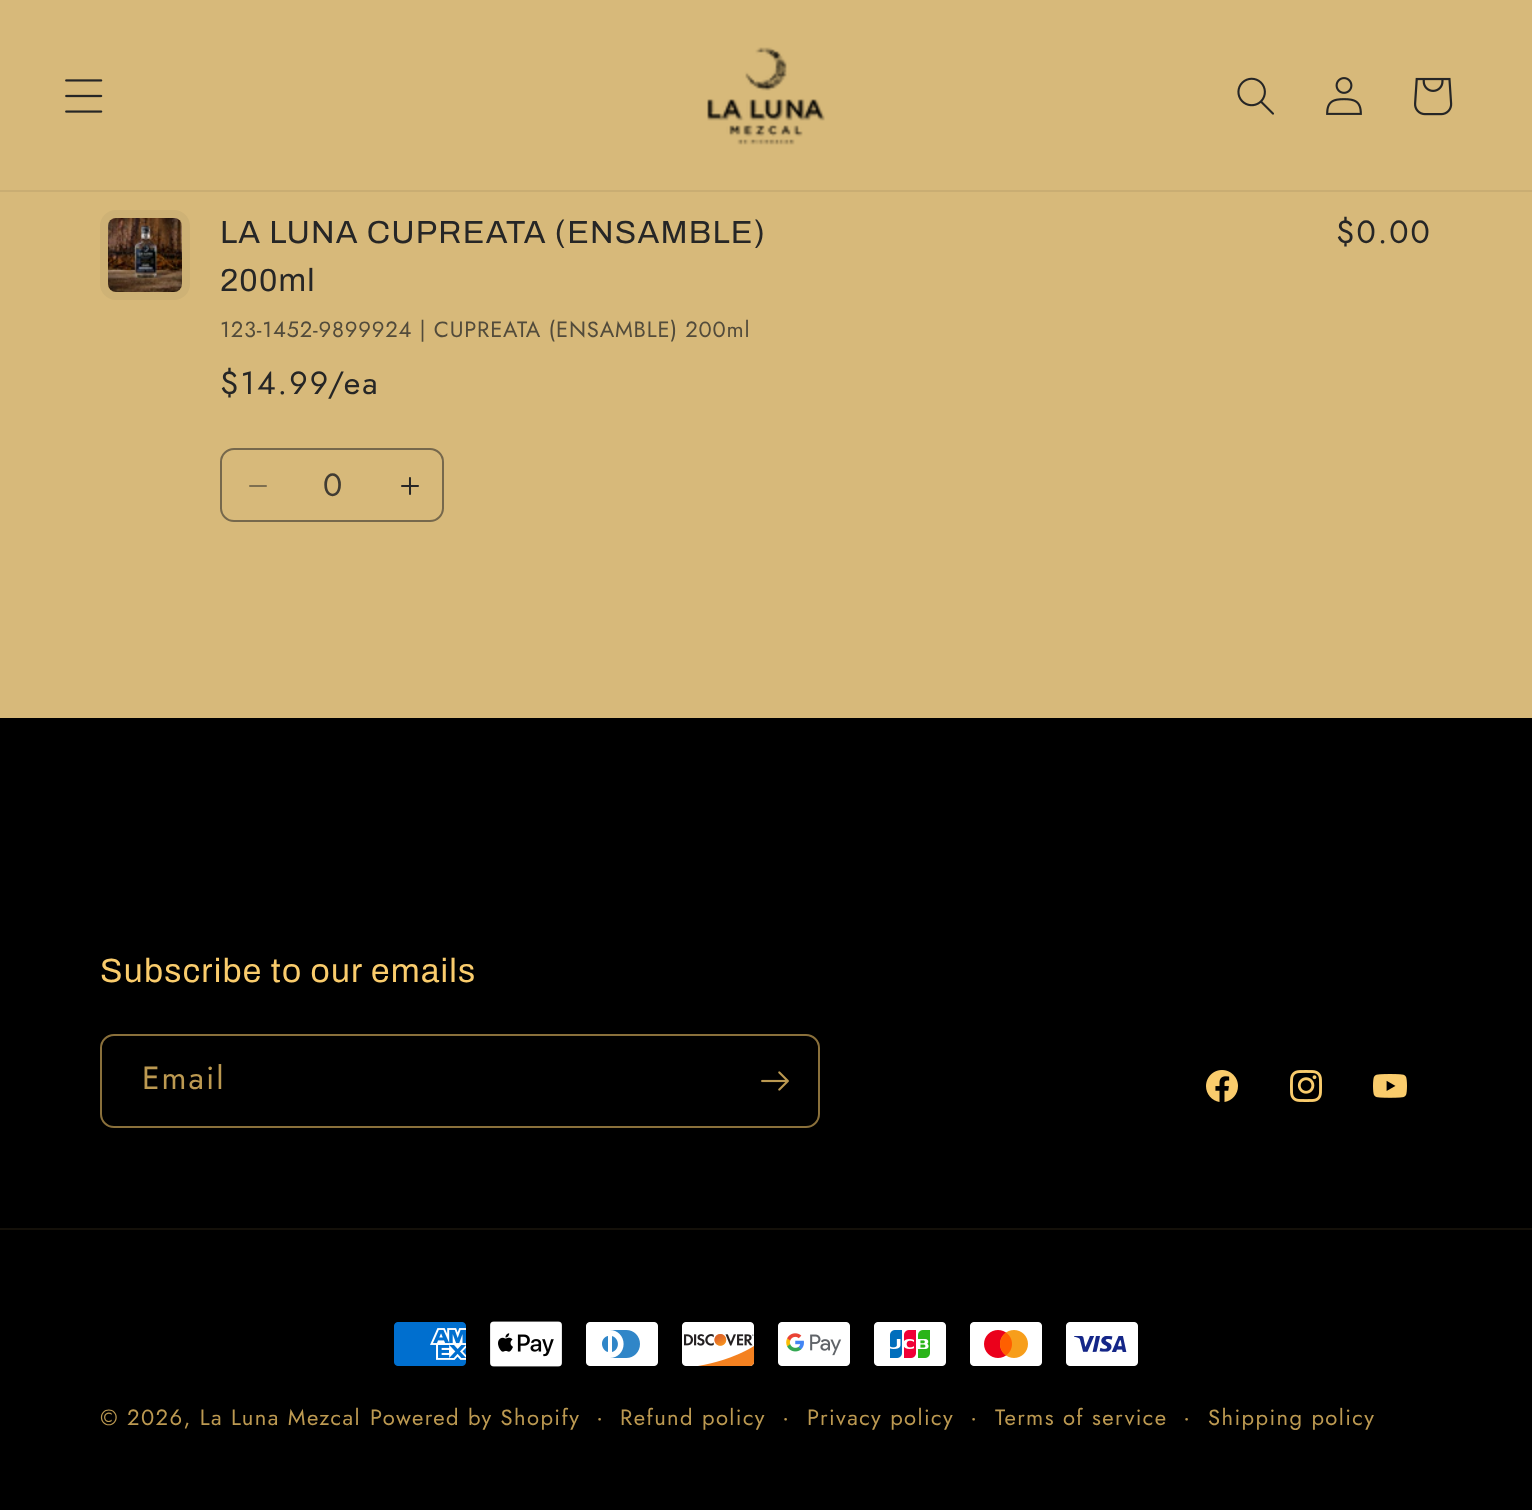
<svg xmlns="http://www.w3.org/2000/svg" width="1532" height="1510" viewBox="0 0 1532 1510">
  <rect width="100%" height="100%" fill="#000"/>
  <path d="M0 0h1532v190H0z" fill="#d7b97a"/>
  <path d="M0 190h1532v2H0z" fill="#c9ad73"/>
  <image x="65" y="79" width="38" height="34" href="img/1.png"/>
  <image x="707" y="47" width="118" height="98" href="img/2.png"/>
  <image x="1237" y="77" width="37" height="38" href="img/3.png"/>
  <image x="1326" y="77" width="36" height="38" href="img/4.png"/>
  <image x="1414" y="77" width="39" height="39" href="img/5.png"/>
  <path d="M0 192h1532v526H0z" fill="#d7b97a"/>
  <rect x="104" y="214" width="82" height="82" rx="12" fill="none" stroke="#ceb276" stroke-width="8"/>
  <image x="108" y="218" width="74" height="74" href="img/6.png"/>
  <image x="249" y="485" width="18" height="2" href="img/7.png"/>
  <image x="401" y="477" width="18" height="18" href="img/8.png"/>
  <rect x="221" y="449" width="222" height="72" rx="13" fill="none" stroke="#76684c" stroke-width="2"/>
  <rect x="101" y="1035" width="718" height="92" rx="13" fill="none" stroke="#8a703b" stroke-width="2"/>
  <image x="761" y="1071" width="28" height="20" href="img/9.png"/>
  <image x="1206" y="1070" width="32" height="32" href="img/10.png"/>
  <image x="1290" y="1070" width="32" height="32" href="img/11.png"/>
  <image x="1373" y="1074" width="34" height="24" href="img/12.png"/>
  <path d="M0 1228h1532v2H0z" fill="#141009"/>
  <image x="394" y="1322" width="72" height="44" href="img/13.png"/>
  <image x="490" y="1321" width="72" height="46" href="img/14.png"/>
  <image x="586" y="1322" width="72" height="44" href="img/15.png"/>
  <image x="682" y="1322" width="73" height="44" href="img/16.png"/>
  <image x="778" y="1322" width="72" height="44" href="img/17.png"/>
  <image x="874" y="1322" width="72" height="44" href="img/18.png"/>
  <image x="970" y="1322" width="72" height="44" href="img/19.png"/>
  <image x="1066" y="1322" width="72" height="44" href="img/20.png"/>
  <g font-family="Archivo" font-size="32" letter-spacing="1.2" fill="#262626">
    <text x="220" y="243">LA LUNA CUPREATA (ENSAMBLE)</text>
    <text x="220" y="291">200ml</text>
  </g>
  <text x="220" y="337" font-family="Jost" font-size="22" letter-spacing="0.8" fill="#524b3b">123-1452-9899924 | CUPREATA (ENSAMBLE) 200ml</text>
  <g font-family="Jost" font-size="32" letter-spacing="2" fill="#262626">
    <text x="220" y="394">$14.99/ea</text>
    <text x="1336" y="243">$0.00</text>
  </g>
  <text x="323" y="496" font-family="Jost" font-size="32" fill="#413c33">0</text>
  <text x="100" y="982" font-family="Archivo" font-size="33.6" letter-spacing="1.25" fill="#facc6c">Subscribe to our emails</text>
  <text x="142" y="1089" font-family="Jost" font-size="32" letter-spacing="2" fill="#bc9951">Email</text>
  <g font-family="Jost" font-size="22" letter-spacing="1.4" fill="#bc9951">
    <text x="100" y="1425">© 2026, La Luna Mezcal</text>
    <text x="370" y="1425">Powered by Shopify</text>
  </g>
  <text x="596" y="1425" font-family="Jost" font-size="24" letter-spacing="1.4" fill="#bc9951">·</text>
  <text x="620" y="1425" font-family="Jost" font-size="22" letter-spacing="1.4" fill="#bc9951">Refund policy</text>
  <text x="782" y="1425" font-family="Jost" font-size="24" letter-spacing="1.4" fill="#bc9951">·</text>
  <text x="807" y="1425" font-family="Jost" font-size="22" letter-spacing="1.4" fill="#bc9951">Privacy policy</text>
  <text x="970" y="1425" font-family="Jost" font-size="24" letter-spacing="1.4" fill="#bc9951">·</text>
  <text x="995" y="1425" font-family="Jost" font-size="22" letter-spacing="1.4" fill="#bc9951">Terms of service</text>
  <text x="1183" y="1425" font-family="Jost" font-size="24" letter-spacing="1.4" fill="#bc9951">·</text>
  <text x="1208" y="1425" font-family="Jost" font-size="22" letter-spacing="1.4" fill="#bc9951">Shipping policy</text>
</svg>
